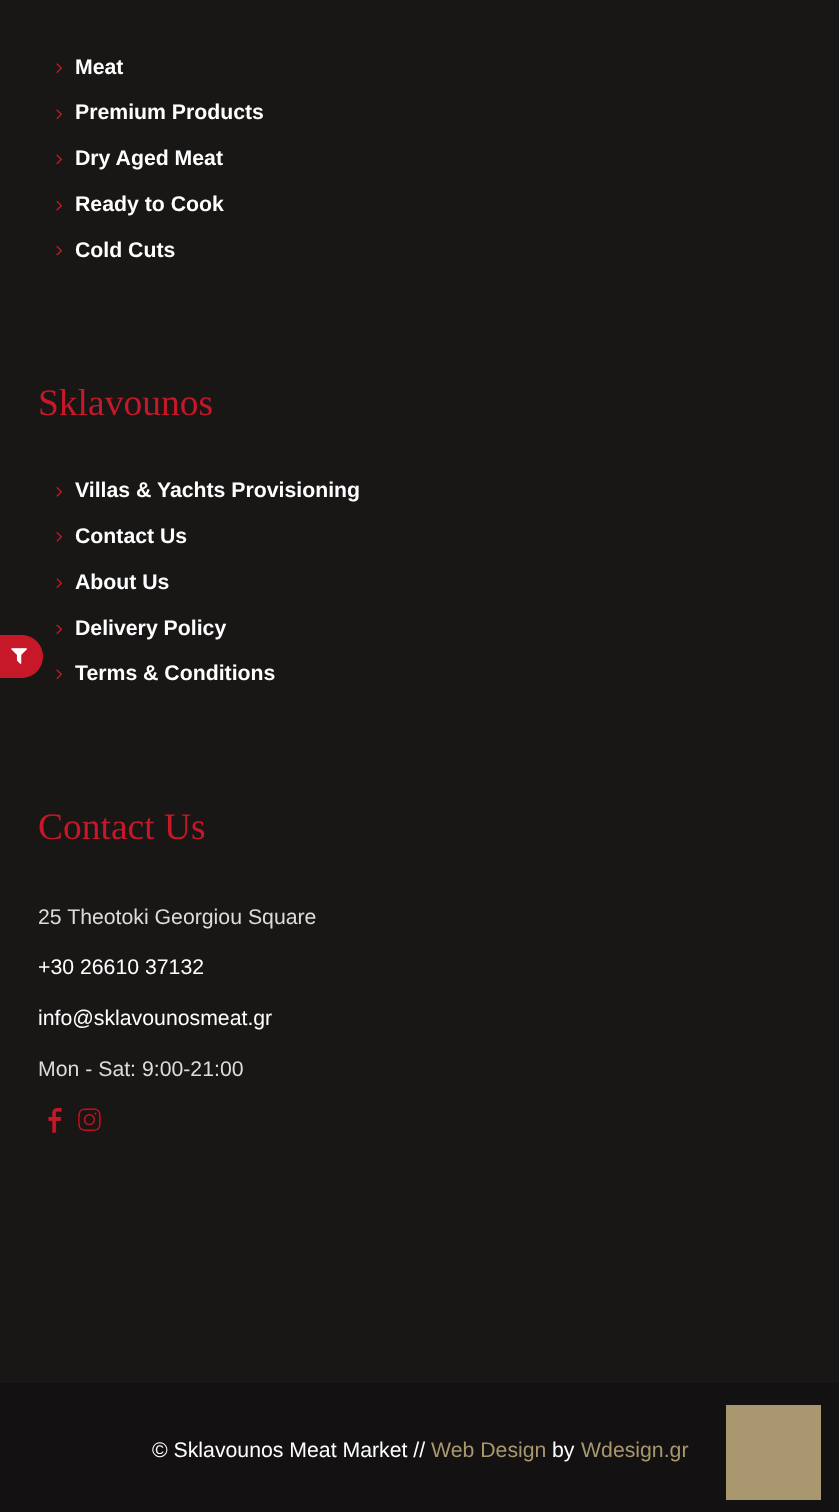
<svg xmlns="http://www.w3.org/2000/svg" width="839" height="1512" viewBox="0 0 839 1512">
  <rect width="100%" height="100%" fill="#191716"/>
  <path d="M0 635H21.5C33.5 635 43 644.5 43 656.5C43 668.5 33.5 678 21.5 678H0Z" fill="#c61829"/>
  <image x="11" y="648" width="16" height="16" href="img/1.png"/>
  <image x="56" y="63" width="6" height="10" href="img/2.png"/>
  <image x="56" y="109" width="6" height="11" href="img/3.png"/>
  <image x="56" y="154" width="6" height="11" href="img/3.png"/>
  <image x="56" y="200" width="6" height="11" href="img/4.png"/>
  <image x="56" y="245" width="6" height="11" href="img/4.png"/>
  <image x="56" y="487" width="6" height="10" href="img/5.png"/>
  <image x="56" y="532" width="6" height="10" href="img/5.png"/>
  <image x="56" y="578" width="6" height="10" href="img/2.png"/>
  <image x="56" y="624" width="6" height="11" href="img/3.png"/>
  <image x="56" y="669" width="6" height="11" href="img/3.png"/>
  <image x="48" y="1107" width="14" height="26" href="img/6.png"/>
  <image x="78" y="1108" width="23" height="23" href="img/7.png"/>
  <path d="M0 1383h839v129H0z" fill="#131111"/>
  <path d="M726 1405h95v95H726z" fill="#a9976f"/>
  <g font-family="Liberation Sans" font-size="21.25" font-weight="bold" fill="#fff">
    <text x="75" y="74">Meat</text>
    <text x="75" y="119">Premium Products</text>
    <text x="75" y="165">Dry Aged Meat</text>
    <text x="75" y="211">Ready to Cook</text>
    <text x="75" y="257">Cold Cuts</text>
  </g>
  <text x="38" y="415" font-family="Liberation Serif" font-size="37.5" fill="#c61829">Sklavounos</text>
  <g font-family="Liberation Sans" font-size="21.25" font-weight="bold" fill="#fff">
    <text x="75" y="497">Villas &amp; Yachts Provisioning</text>
    <text x="75" y="543">Contact Us</text>
    <text x="75" y="589">About Us</text>
    <text x="75" y="635">Delivery Policy</text>
    <text x="75" y="680">Terms &amp; Conditions</text>
  </g>
  <text x="38" y="839" font-family="Liberation Serif" font-size="37.5" fill="#c61829">Contact Us</text>
  <text x="38" y="924" font-family="Liberation Sans" font-size="21.25" fill="#dddcdc">25 Theotoki Georgiou Square</text>
  <g font-family="Liberation Sans" font-size="21.25" fill="#fff">
    <text x="38" y="974">+30 26610 37132</text>
    <text x="38" y="1025">info@sklavounosmeat.gr</text>
  </g>
  <text x="38" y="1076" font-family="Liberation Sans" font-size="21.25" fill="#dddcdc">Mon - Sat: 9:00-21:00</text>
  <text x="152" y="1457" font-family="Liberation Sans" font-size="21.25" fill="#fff">© Sklavounos Meat Market //</text>
  <text x="431" y="1457" font-family="Liberation Sans" font-size="21.25" fill="#a9976f">Web Design</text>
  <text x="552" y="1457" font-family="Liberation Sans" font-size="21.25" fill="#fff">by</text>
  <text x="581" y="1457" font-family="Liberation Sans" font-size="21.25" fill="#a9976f">Wdesign.gr</text>
</svg>
